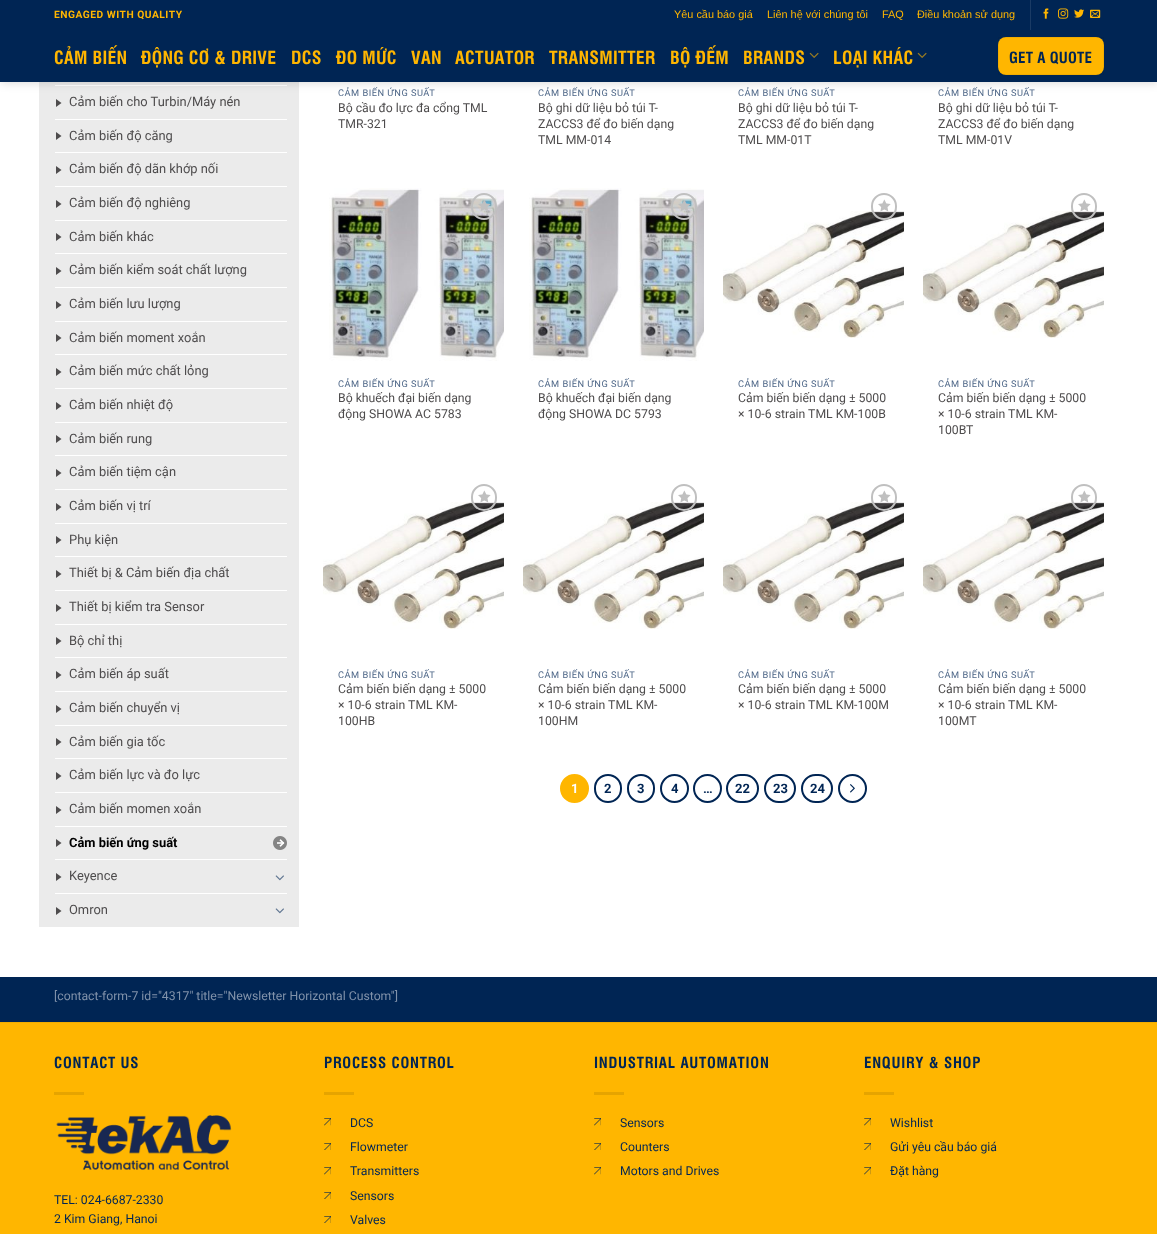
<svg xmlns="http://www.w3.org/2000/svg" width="1157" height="1234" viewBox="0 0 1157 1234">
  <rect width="100%" height="100%" fill="#fff"/>
  <path d="M39 82h260v845H39z" fill="#ebebeb"/>
  <path d="M55 85h232v1H55z" fill="#fff"/>
  <path d="M1 1h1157v82H1z" fill="#00000026" filter="blur(5px)"/>
  <path d="M0 0h1157v82H0z" fill="#002554"/>
  <path d="M1030 0h1v30H1030z" fill="#1a3b65"/>
  <image x="1043" y="8" width="6" height="11" href="img/1.png"/>
  <image x="1058" y="8" width="11" height="11" href="img/2.png"/>
  <image x="1074" y="9" width="10" height="9" href="img/3.png"/>
  <image x="1090" y="9" width="11" height="9" href="img/4.png"/>
  <image x="809" y="52" width="10" height="6" href="img/5.png"/>
  <image x="917" y="52" width="10" height="6" href="img/5.png"/>
  <rect x="998" y="37" width="106" height="38" rx="8" fill="#ffb600"/>
  <path d="M998.5 37.5h105v37H998.5z" fill="none" stroke="#0000000d"/>
  <path d="M56 99V107L61.5 103" fill="#4e4c4d"/>
  <path d="M56 132V140L61.5 136" fill="#4e4c4d"/>
  <path d="M55 119h232v1H55z" fill="#fff"/>
  <path d="M56 166V174L61.5 170" fill="#4e4c4d"/>
  <path d="M55 152h232v1H55z" fill="#fff"/>
  <path d="M56 200V208L61.5 204" fill="#4e4c4d"/>
  <path d="M55 186h232v1H55z" fill="#fff"/>
  <path d="M56 233V241L61.5 237" fill="#4e4c4d"/>
  <path d="M55 220h232v1H55z" fill="#fff"/>
  <path d="M56 267V275L61.5 271" fill="#4e4c4d"/>
  <path d="M55 253h232v1H55z" fill="#fff"/>
  <path d="M56 301V309L61.5 305" fill="#4e4c4d"/>
  <path d="M55 287h232v1H55z" fill="#fff"/>
  <path d="M56 334V342L61.5 338" fill="#4e4c4d"/>
  <path d="M55 321h232v1H55z" fill="#fff"/>
  <path d="M56 368V376L61.5 372" fill="#4e4c4d"/>
  <path d="M55 354h232v1H55z" fill="#fff"/>
  <path d="M56 402V410L61.5 406" fill="#4e4c4d"/>
  <path d="M55 388h232v1H55z" fill="#fff"/>
  <path d="M56 435V443L61.5 439" fill="#4e4c4d"/>
  <path d="M55 422h232v1H55z" fill="#fff"/>
  <path d="M56 469V477L61.5 473" fill="#4e4c4d"/>
  <path d="M55 455h232v1H55z" fill="#fff"/>
  <path d="M56 503V511L61.5 507" fill="#4e4c4d"/>
  <path d="M55 489h232v1H55z" fill="#fff"/>
  <path d="M56 536V544L61.5 540" fill="#4e4c4d"/>
  <path d="M55 523h232v1H55z" fill="#fff"/>
  <path d="M56 570V578L61.5 574" fill="#4e4c4d"/>
  <path d="M55 556h232v1H55z" fill="#fff"/>
  <path d="M56 604V612L61.5 608" fill="#4e4c4d"/>
  <path d="M55 590h232v1H55z" fill="#fff"/>
  <path d="M56 637V645L61.5 641" fill="#4e4c4d"/>
  <path d="M55 624h232v1H55z" fill="#fff"/>
  <path d="M56 671V679L61.5 675" fill="#4e4c4d"/>
  <path d="M55 657h232v1H55z" fill="#fff"/>
  <path d="M56 705V713L61.5 709" fill="#4e4c4d"/>
  <path d="M55 691h232v1H55z" fill="#fff"/>
  <path d="M56 738V746L61.5 742" fill="#4e4c4d"/>
  <path d="M55 725h232v1H55z" fill="#fff"/>
  <path d="M56 772V780L61.5 776" fill="#4e4c4d"/>
  <path d="M55 758h232v1H55z" fill="#fff"/>
  <path d="M56 806V814L61.5 810" fill="#4e4c4d"/>
  <path d="M55 792h232v1H55z" fill="#fff"/>
  <path d="M56 839V847L61.5 843" fill="#4e4c4d"/>
  <path d="M55 826h232v1H55z" fill="#fff"/>
  <image x="273" y="836" width="14" height="14" href="img/6.png"/>
  <path d="M56 873V881L61.5 877" fill="#4e4c4d"/>
  <path d="M55 859h232v1H55z" fill="#fff"/>
  <image x="275" y="875" width="9" height="6" href="img/7.png"/>
  <path d="M56 907V915L61.5 911" fill="#4e4c4d"/>
  <path d="M55 893h232v1H55z" fill="#fff"/>
  <image x="275" y="908" width="9" height="6" href="img/7.png"/>
  <image x="329" y="188" width="175" height="173" href="img/8.png"/>
  <rect x="472" y="194" width="24" height="25" rx="12" fill="none" stroke="#c0c0c0" stroke-width="2"/>
  <image x="478" y="200" width="13" height="12" href="img/9.png"/>
  <image x="529" y="188" width="175" height="173" href="img/8.png"/>
  <rect x="672" y="194" width="24" height="25" rx="12" fill="none" stroke="#c0c0c0" stroke-width="2"/>
  <image x="678" y="200" width="13" height="12" href="img/9.png"/>
  <image x="723" y="211" width="181" height="127" href="img/11.png"/>
  <rect x="872" y="194" width="24" height="25" rx="12" fill="none" stroke="#c0c0c0" stroke-width="2"/>
  <image x="878" y="199" width="13" height="13" href="img/10.png"/>
  <image x="923" y="211" width="181" height="127" href="img/11.png"/>
  <rect x="1072" y="194" width="24" height="25" rx="12" fill="none" stroke="#c0c0c0" stroke-width="2"/>
  <image x="1078" y="199" width="13" height="13" href="img/10.png"/>
  <image x="323" y="502" width="181" height="127" href="img/12.png"/>
  <rect x="472" y="485" width="24" height="25" rx="12" fill="none" stroke="#c0c0c0" stroke-width="2"/>
  <image x="478" y="490" width="13" height="13" href="img/10.png"/>
  <image x="523" y="502" width="181" height="127" href="img/12.png"/>
  <rect x="672" y="485" width="24" height="25" rx="12" fill="none" stroke="#c0c0c0" stroke-width="2"/>
  <image x="678" y="490" width="13" height="13" href="img/10.png"/>
  <image x="723" y="502" width="181" height="127" href="img/12.png"/>
  <rect x="872" y="485" width="24" height="25" rx="12" fill="none" stroke="#c0c0c0" stroke-width="2"/>
  <image x="878" y="490" width="13" height="13" href="img/10.png"/>
  <image x="923" y="502" width="181" height="127" href="img/12.png"/>
  <rect x="1072" y="485" width="24" height="25" rx="12" fill="none" stroke="#c0c0c0" stroke-width="2"/>
  <image x="1078" y="490" width="13" height="13" href="img/10.png"/>
  <circle cx="574.5" cy="788.5" r="13.5" fill="#ffb600" stroke="#ffb600" stroke-width="2"/>
  <rect x="595" y="775" width="26" height="27" rx="13" fill="none" stroke="#002554" stroke-width="2"/>
  <rect x="628" y="775" width="26" height="27" rx="13" fill="none" stroke="#002554" stroke-width="2"/>
  <circle cx="674.5" cy="788.5" r="13.5" fill="none" stroke="#002554" stroke-width="2"/>
  <circle cx="707.5" cy="788.5" r="13.5" fill="none" stroke="#002554" stroke-width="2"/>
  <rect x="727" y="775" width="31" height="27" rx="13.5" fill="none" stroke="#002554" stroke-width="2"/>
  <rect x="765" y="775" width="30" height="27" rx="13.5" fill="none" stroke="#002554" stroke-width="2"/>
  <rect x="802" y="775" width="30" height="27" rx="13.5" fill="none" stroke="#002554" stroke-width="2"/>
  <circle cx="852.5" cy="788.5" r="13.5" fill="none" stroke="#002554" stroke-width="2"/>
  <image x="850" y="784" width="5" height="9" href="img/13.png"/>
  <path d="M0 977h1157v45H0z" fill="#002554"/>
  <path d="M0 1023h1157v211H0z" fill="#ffb600"/>
  <path d="M0 1022h1157v1H0z" fill="#f2ad00"/>
  <path d="M54 1092h30v3H54z" fill="#e6a400"/>
  <image x="56" y="1115" width="176" height="55" href="img/14.png"/>
  <path d="M324 1092h30v3H324z" fill="#e6a400"/>
  <image x="324" y="1118" width="7" height="8" href="img/15.png"/>
  <image x="324" y="1143" width="7" height="7" href="img/16.png"/>
  <image x="324" y="1167" width="7" height="8" href="img/15.png"/>
  <image x="324" y="1192" width="7" height="7" href="img/16.png"/>
  <image x="324" y="1216" width="7" height="7" href="img/16.png"/>
  <path d="M594 1092h30v3H594z" fill="#e6a400"/>
  <image x="594" y="1118" width="7" height="8" href="img/15.png"/>
  <image x="594" y="1143" width="7" height="7" href="img/16.png"/>
  <image x="594" y="1167" width="7" height="8" href="img/15.png"/>
  <path d="M864 1092h30v3H864z" fill="#e6a400"/>
  <image x="864" y="1118" width="7" height="8" href="img/15.png"/>
  <image x="864" y="1143" width="7" height="7" href="img/16.png"/>
  <image x="864" y="1167" width="7" height="8" href="img/15.png"/>
  <text x="54" y="18" font-family="Roboto" font-size="10.25" font-weight="bold" letter-spacing="0.5" fill="#ffb600">ENGAGED WITH QUALITY</text>
  <g font-family="Liberation Sans" font-size="10.9" fill="#ffb600">
    <text x="674" y="18">Yêu cầu báo giá</text>
    <text x="767" y="18">Liên hệ với chúng tôi</text>
    <text x="882" y="18">FAQ</text>
    <text x="917" y="18">Điều khoản sử dụng</text>
  </g>
  <g font-family="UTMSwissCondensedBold" font-size="17.75" font-weight="bold" letter-spacing="0.3" fill="#ffb600">
    <text x="54" y="64">CẢM BIẾN</text>
    <text x="141" y="64">ĐỘNG CƠ &amp; DRIVE</text>
    <text x="291" y="64">DCS</text>
    <text x="336" y="64">ĐO MỨC</text>
    <text x="411" y="64">VAN</text>
    <text x="455" y="64">ACTUATOR</text>
    <text x="549" y="64">TRANSMITTER</text>
    <text x="670" y="64">BỘ ĐẾM</text>
    <text x="743" y="64">BRANDS</text>
    <text x="833" y="64">LOẠI KHÁC</text>
  </g>
  <text x="1009" y="63" font-family="UTMSwissCondensedBold" font-size="15" font-weight="bold" letter-spacing="0.25" fill="#002554">GET A QUOTE</text>
  <g font-family="Roboto" font-size="12.9" fill="#4e4c4d">
    <text x="69" y="106">Cảm biến cho Turbin/Máy nén</text>
    <text x="69" y="140">Cảm biến độ căng</text>
    <text x="69" y="173">Cảm biến độ dãn khớp nối</text>
    <text x="69" y="207">Cảm biến độ nghiêng</text>
    <text x="69" y="241">Cảm biến khác</text>
    <text x="69" y="274">Cảm biến kiểm soát chất lượng</text>
    <text x="69" y="308">Cảm biến lưu lượng</text>
    <text x="69" y="342">Cảm biến moment xoắn</text>
    <text x="69" y="375">Cảm biến mức chất lỏng</text>
    <text x="69" y="409">Cảm biến nhiệt độ</text>
    <text x="69" y="443">Cảm biến rung</text>
    <text x="69" y="476">Cảm biến tiệm cận</text>
    <text x="69" y="510">Cảm biến vị trí</text>
    <text x="69" y="544">Phụ kiện</text>
    <text x="69" y="577">Thiết bị &amp; Cảm biến địa chất</text>
    <text x="69" y="611">Thiết bị kiểm tra Sensor</text>
    <text x="69" y="645">Bộ chỉ thị</text>
    <text x="69" y="678">Cảm biến áp suất</text>
    <text x="69" y="712">Cảm biến chuyển vị</text>
    <text x="69" y="746">Cảm biến gia tốc</text>
    <text x="69" y="779">Cảm biến lực và đo lực</text>
    <text x="69" y="813">Cảm biến momen xoắn</text>
  </g>
  <text x="69" y="847" font-family="Roboto" font-size="12.9" font-weight="bold" fill="#000">Cảm biến ứng suất</text>
  <g font-family="Roboto" font-size="12.9" fill="#4e4c4d">
    <text x="69" y="880">Keyence</text>
    <text x="69" y="914">Omron</text>
  </g>
  <text x="338" y="96" font-family="Roboto" font-size="9.25" letter-spacing="0.5" fill="#4d6687">CẢM BIẾN ỨNG SUẤT</text>
  <g font-family="Roboto" font-size="12.25" fill="#4e4c4d">
    <text x="338" y="112">Bộ cầu đo lực đa cổng TML</text>
    <text x="338" y="128">TMR-321</text>
  </g>
  <text x="538" y="96" font-family="Roboto" font-size="9.25" letter-spacing="0.5" fill="#4d6687">CẢM BIẾN ỨNG SUẤT</text>
  <g font-family="Roboto" font-size="12.25" fill="#4e4c4d">
    <text x="538" y="112">Bộ ghi dữ liệu bỏ túi T-</text>
    <text x="538" y="128">ZACCS3 để đo biến dạng</text>
    <text x="538" y="144">TML MM-014</text>
  </g>
  <text x="738" y="96" font-family="Roboto" font-size="9.25" letter-spacing="0.5" fill="#4d6687">CẢM BIẾN ỨNG SUẤT</text>
  <g font-family="Roboto" font-size="12.25" fill="#4e4c4d">
    <text x="738" y="112">Bộ ghi dữ liệu bỏ túi T-</text>
    <text x="738" y="128">ZACCS3 để đo biến dạng</text>
    <text x="738" y="144">TML MM-01T</text>
  </g>
  <text x="938" y="96" font-family="Roboto" font-size="9.25" letter-spacing="0.5" fill="#4d6687">CẢM BIẾN ỨNG SUẤT</text>
  <g font-family="Roboto" font-size="12.25" fill="#4e4c4d">
    <text x="938" y="112">Bộ ghi dữ liệu bỏ túi T-</text>
    <text x="938" y="128">ZACCS3 để đo biến dạng</text>
    <text x="938" y="144">TML MM-01V</text>
  </g>
  <text x="338" y="387" font-family="Roboto" font-size="9.25" letter-spacing="0.5" fill="#4d6687">CẢM BIẾN ỨNG SUẤT</text>
  <g font-family="Roboto" font-size="12.25" fill="#4e4c4d">
    <text x="338" y="402">Bộ khuếch đại biến dạng</text>
    <text x="338" y="418">động SHOWA AC 5783</text>
  </g>
  <text x="538" y="387" font-family="Roboto" font-size="9.25" letter-spacing="0.5" fill="#4d6687">CẢM BIẾN ỨNG SUẤT</text>
  <g font-family="Roboto" font-size="12.25" fill="#4e4c4d">
    <text x="538" y="402">Bộ khuếch đại biến dạng</text>
    <text x="538" y="418">động SHOWA DC 5793</text>
  </g>
  <text x="738" y="387" font-family="Roboto" font-size="9.25" letter-spacing="0.5" fill="#4d6687">CẢM BIẾN ỨNG SUẤT</text>
  <g font-family="Roboto" font-size="12.25" fill="#4e4c4d">
    <text x="738" y="402">Cảm biến biến dạng ± 5000</text>
    <text x="738" y="418">× 10-6 strain TML KM-100B</text>
  </g>
  <text x="938" y="387" font-family="Roboto" font-size="9.25" letter-spacing="0.5" fill="#4d6687">CẢM BIẾN ỨNG SUẤT</text>
  <g font-family="Roboto" font-size="12.25" fill="#4e4c4d">
    <text x="938" y="402">Cảm biến biến dạng ± 5000</text>
    <text x="938" y="418">× 10-6 strain TML KM-</text>
    <text x="938" y="434">100BT</text>
  </g>
  <text x="338" y="678" font-family="Roboto" font-size="9.25" letter-spacing="0.5" fill="#4d6687">CẢM BIẾN ỨNG SUẤT</text>
  <g font-family="Roboto" font-size="12.25" fill="#4e4c4d">
    <text x="338" y="693">Cảm biến biến dạng ± 5000</text>
    <text x="338" y="709">× 10-6 strain TML KM-</text>
    <text x="338" y="725">100HB</text>
  </g>
  <text x="538" y="678" font-family="Roboto" font-size="9.25" letter-spacing="0.5" fill="#4d6687">CẢM BIẾN ỨNG SUẤT</text>
  <g font-family="Roboto" font-size="12.25" fill="#4e4c4d">
    <text x="538" y="693">Cảm biến biến dạng ± 5000</text>
    <text x="538" y="709">× 10-6 strain TML KM-</text>
    <text x="538" y="725">100HM</text>
  </g>
  <text x="738" y="678" font-family="Roboto" font-size="9.25" letter-spacing="0.5" fill="#4d6687">CẢM BIẾN ỨNG SUẤT</text>
  <g font-family="Roboto" font-size="12.25" fill="#4e4c4d">
    <text x="738" y="693">Cảm biến biến dạng ± 5000</text>
    <text x="738" y="709">× 10-6 strain TML KM-100M</text>
  </g>
  <text x="938" y="678" font-family="Roboto" font-size="9.25" letter-spacing="0.5" fill="#4d6687">CẢM BIẾN ỨNG SUẤT</text>
  <g font-family="Roboto" font-size="12.25" fill="#4e4c4d">
    <text x="938" y="693">Cảm biến biến dạng ± 5000</text>
    <text x="938" y="709">× 10-6 strain TML KM-</text>
    <text x="938" y="725">100MT</text>
  </g>
  <text x="571" y="793" font-family="Roboto" font-size="13" font-weight="bold" fill="#fff">1</text>
  <g font-family="Roboto" font-size="13" font-weight="bold" fill="#002554">
    <text x="604" y="793">2</text>
    <text x="637" y="793">3</text>
    <text x="671" y="793">4</text>
    <text x="703" y="793">…</text>
    <text x="735" y="793">22</text>
    <text x="773" y="793">23</text>
    <text x="810" y="793">24</text>
  </g>
  <text x="54" y="1000" font-family="Roboto" font-size="12.25" fill="#8092aa">[contact-form-7 id="4317" title="Newsletter Horizontal Custom"]</text>
  <text x="54" y="1068" font-family="UTMSwissCondensedBold" font-size="15" font-weight="bold" letter-spacing="0.75" fill="#002554">CONTACT US</text>
  <g font-family="Roboto" font-size="12.25" fill="#002554">
    <text x="54" y="1204">TEL: 024-6687-2330</text>
    <text x="54" y="1223">2 Kim Giang, Hanoi</text>
  </g>
  <text x="324" y="1068" font-family="UTMSwissCondensedBold" font-size="15" font-weight="bold" letter-spacing="0.75" fill="#002554">PROCESS CONTROL</text>
  <g font-family="Roboto" font-size="12.25" fill="#002554">
    <text x="350" y="1127">DCS</text>
    <text x="350" y="1151">Flowmeter</text>
    <text x="350" y="1175">Transmitters</text>
    <text x="350" y="1200">Sensors</text>
    <text x="350" y="1224">Valves</text>
  </g>
  <text x="594" y="1068" font-family="UTMSwissCondensedBold" font-size="15" font-weight="bold" letter-spacing="0.75" fill="#002554">INDUSTRIAL AUTOMATION</text>
  <g font-family="Roboto" font-size="12.25" fill="#002554">
    <text x="620" y="1127">Sensors</text>
    <text x="620" y="1151">Counters</text>
    <text x="620" y="1175">Motors and Drives</text>
  </g>
  <text x="864" y="1068" font-family="UTMSwissCondensedBold" font-size="15" font-weight="bold" letter-spacing="0.75" fill="#002554">ENQUIRY &amp; SHOP</text>
  <g font-family="Roboto" font-size="12.25" fill="#002554">
    <text x="890" y="1127">Wishlist</text>
    <text x="890" y="1151">Gửi yêu cầu báo giá</text>
    <text x="890" y="1175">Đặt hàng</text>
  </g>
</svg>
